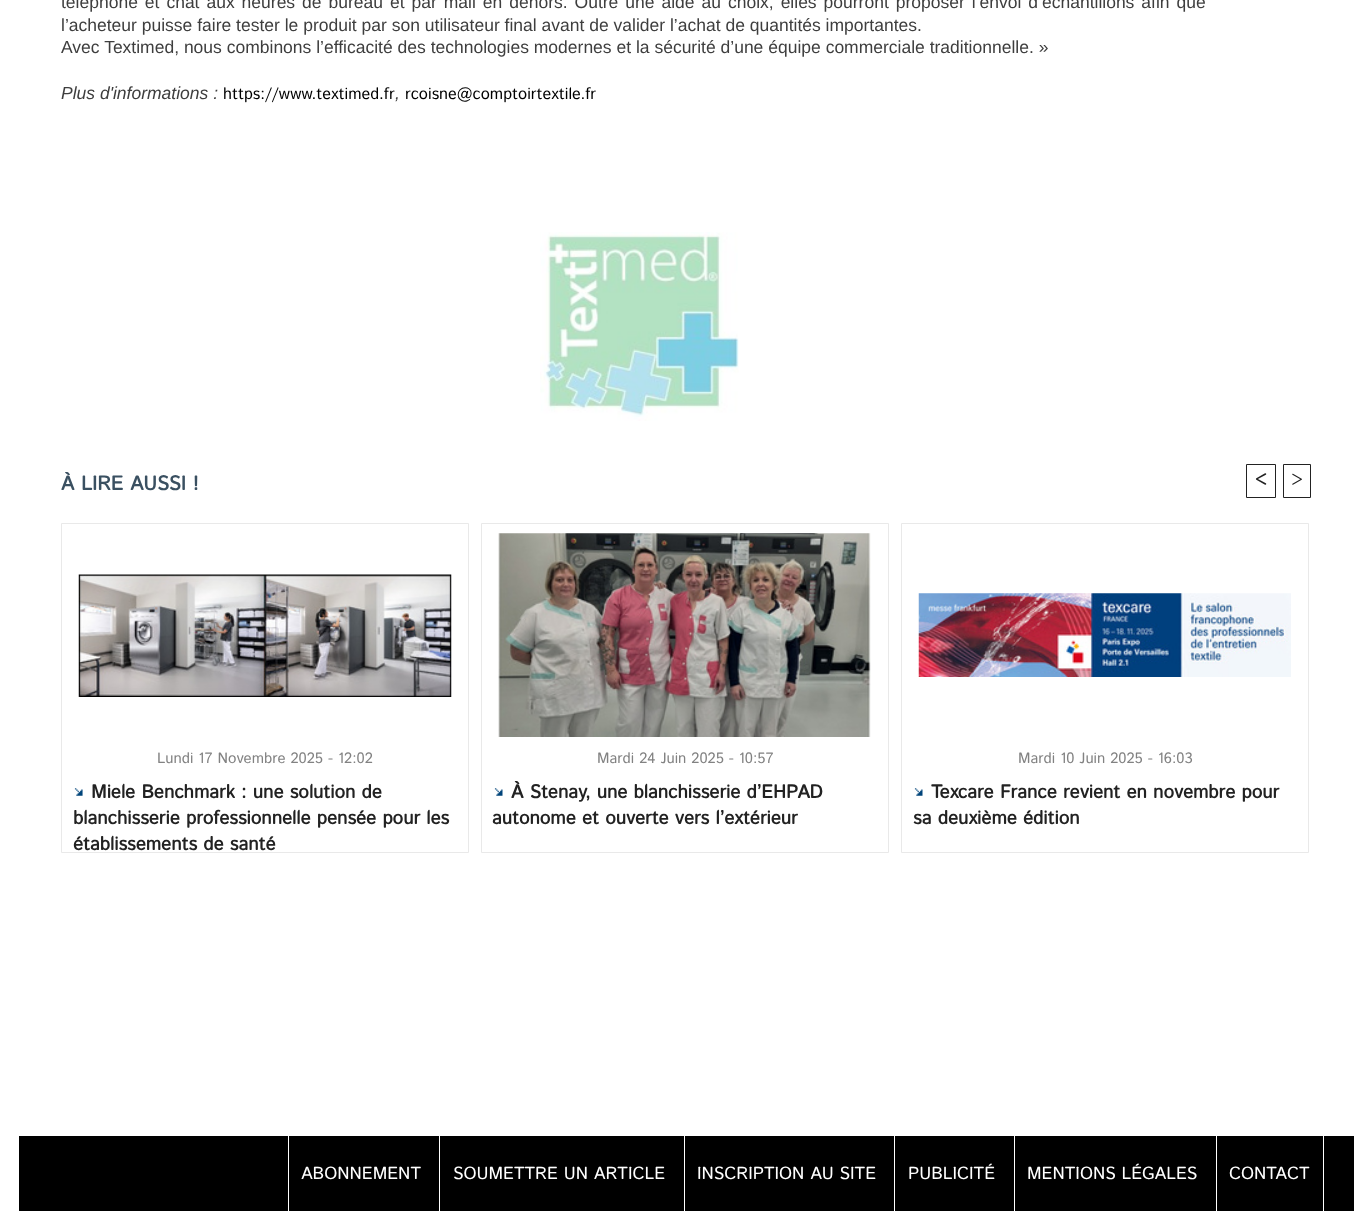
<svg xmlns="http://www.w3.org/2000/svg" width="1372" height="1223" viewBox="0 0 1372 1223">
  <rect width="100%" height="100%" fill="#fff"/>
  <image x="540" y="232" width="199" height="189" href="img/1.png"/>
  <path d="M1246.5 464.5h29v33H1246.5z" fill="none" stroke="#222"/>
  <path d="M1283.5 464.5h27v33H1283.5z" fill="none" stroke="#222"/>
  <path d="M61.5 523.5h407v329H61.5z" fill="none" stroke="#e9e9e9"/>
  <image x="78" y="574" width="374" height="123" href="img/2.png"/>
  <image x="74" y="788" width="9" height="8" href="img/3.png"/>
  <path d="M481.5 523.5h407v329H481.5z" fill="none" stroke="#e9e9e9"/>
  <image x="498" y="533" width="373" height="204" href="img/4.png"/>
  <image x="494" y="788" width="9" height="8" href="img/5.png"/>
  <path d="M901.5 523.5h407v329H901.5z" fill="none" stroke="#e9e9e9"/>
  <image x="918" y="593" width="373" height="84" href="img/6.png"/>
  <image x="914" y="788" width="9" height="8" href="img/5.png"/>
  <path d="M19 1136h1335v75H19z" fill="#000"/>
  <path d="M288 1136h1v75H288z" fill="#fff"/>
  <path d="M439 1136h1v75H439z" fill="#fff"/>
  <path d="M684 1136h1v75H684z" fill="#fff"/>
  <path d="M894 1136h1v75H894z" fill="#fff"/>
  <path d="M1014 1136h1v75H1014z" fill="#fff"/>
  <path d="M1323 1136h1v75H1323z" fill="#fff"/>
  <path d="M1216 1136h1v75H1216z" fill="#fff"/>
  <g font-family="Liberation Sans" font-size="17.5" fill="#3e3e3e">
    <text x="61" y="8" word-spacing="2.1">téléphone et chat aux heures de bureau et par mail en dehors. Outre une aide au choix, elles pourront proposer l’envoi d’échantillons afin que</text>
    <text x="61" y="31">l’acheteur puisse faire tester le produit par son utilisateur final avant de valider l’achat de quantités importantes.</text>
    <text x="61" y="53">Avec Textimed, nous combinons l’efficacité des technologies modernes et la sécurité d’une équipe commerciale traditionnelle. »</text>
  </g>
  <text x="61" y="99" font-family="Liberation Sans" font-size="17.5" font-style="italic" fill="#3e3e3e">Plus d'informations :</text>
  <text x="223" y="99" font-family="Istok Web" font-size="16.25" fill="#000">https://www.textimed.fr</text>
  <text x="395" y="99" font-family="Liberation Sans" font-size="17.5" font-style="italic" fill="#3e3e3e">,</text>
  <text x="405" y="99" font-family="Istok Web" font-size="16.25" fill="#000">rcoisne@comptoirtextile.fr</text>
  <text x="61" y="490" font-family="Istok Web" font-size="20" font-weight="bold" fill="#3a5061">À LIRE AUSSI !</text>
  <text x="1255" y="486" font-family="Istok Web" font-size="18.75" font-weight="bold" fill="#222">&lt;</text>
  <text x="1291" y="486" font-family="Istok Web" font-size="18.75" fill="#222">&gt;</text>
  <text x="157" y="763" font-family="Istok Web" font-size="15" fill="#828282">Lundi 17 Novembre 2025 - 12:02</text>
  <g font-family="Istok Web" font-size="18.75" font-weight="bold" fill="#222">
    <text x="91" y="798">Miele Benchmark : une solution de</text>
    <text x="73" y="824">blanchisserie professionnelle pensée pour les</text>
    <text x="73" y="850">établissements de santé</text>
  </g>
  <text x="597" y="763" font-family="Istok Web" font-size="15" fill="#828282">Mardi 24 Juin 2025 - 10:57</text>
  <g font-family="Istok Web" font-size="18.75" font-weight="bold" fill="#222">
    <text x="511" y="798">À Stenay, une blanchisserie d’EHPAD</text>
    <text x="492" y="824">autonome et ouverte vers l’extérieur</text>
  </g>
  <text x="1018" y="763" font-family="Istok Web" font-size="15" fill="#828282">Mardi 10 Juin 2025 - 16:03</text>
  <g font-family="Istok Web" font-size="18.75" font-weight="bold" fill="#222">
    <text x="931" y="798">Texcare France revient en novembre pour</text>
    <text x="913" y="824">sa deuxième édition</text>
  </g>
  <g font-family="Istok Web" font-size="17.5" fill="#fff">
    <text x="301" y="1179">ABONNEMENT</text>
    <text x="453" y="1179">SOUMETTRE UN ARTICLE</text>
    <text x="697" y="1179">INSCRIPTION AU SITE</text>
    <text x="908" y="1179">PUBLICITÉ</text>
    <text x="1027" y="1179">MENTIONS LÉGALES</text>
    <text x="1229" y="1179">CONTACT</text>
  </g>
</svg>
